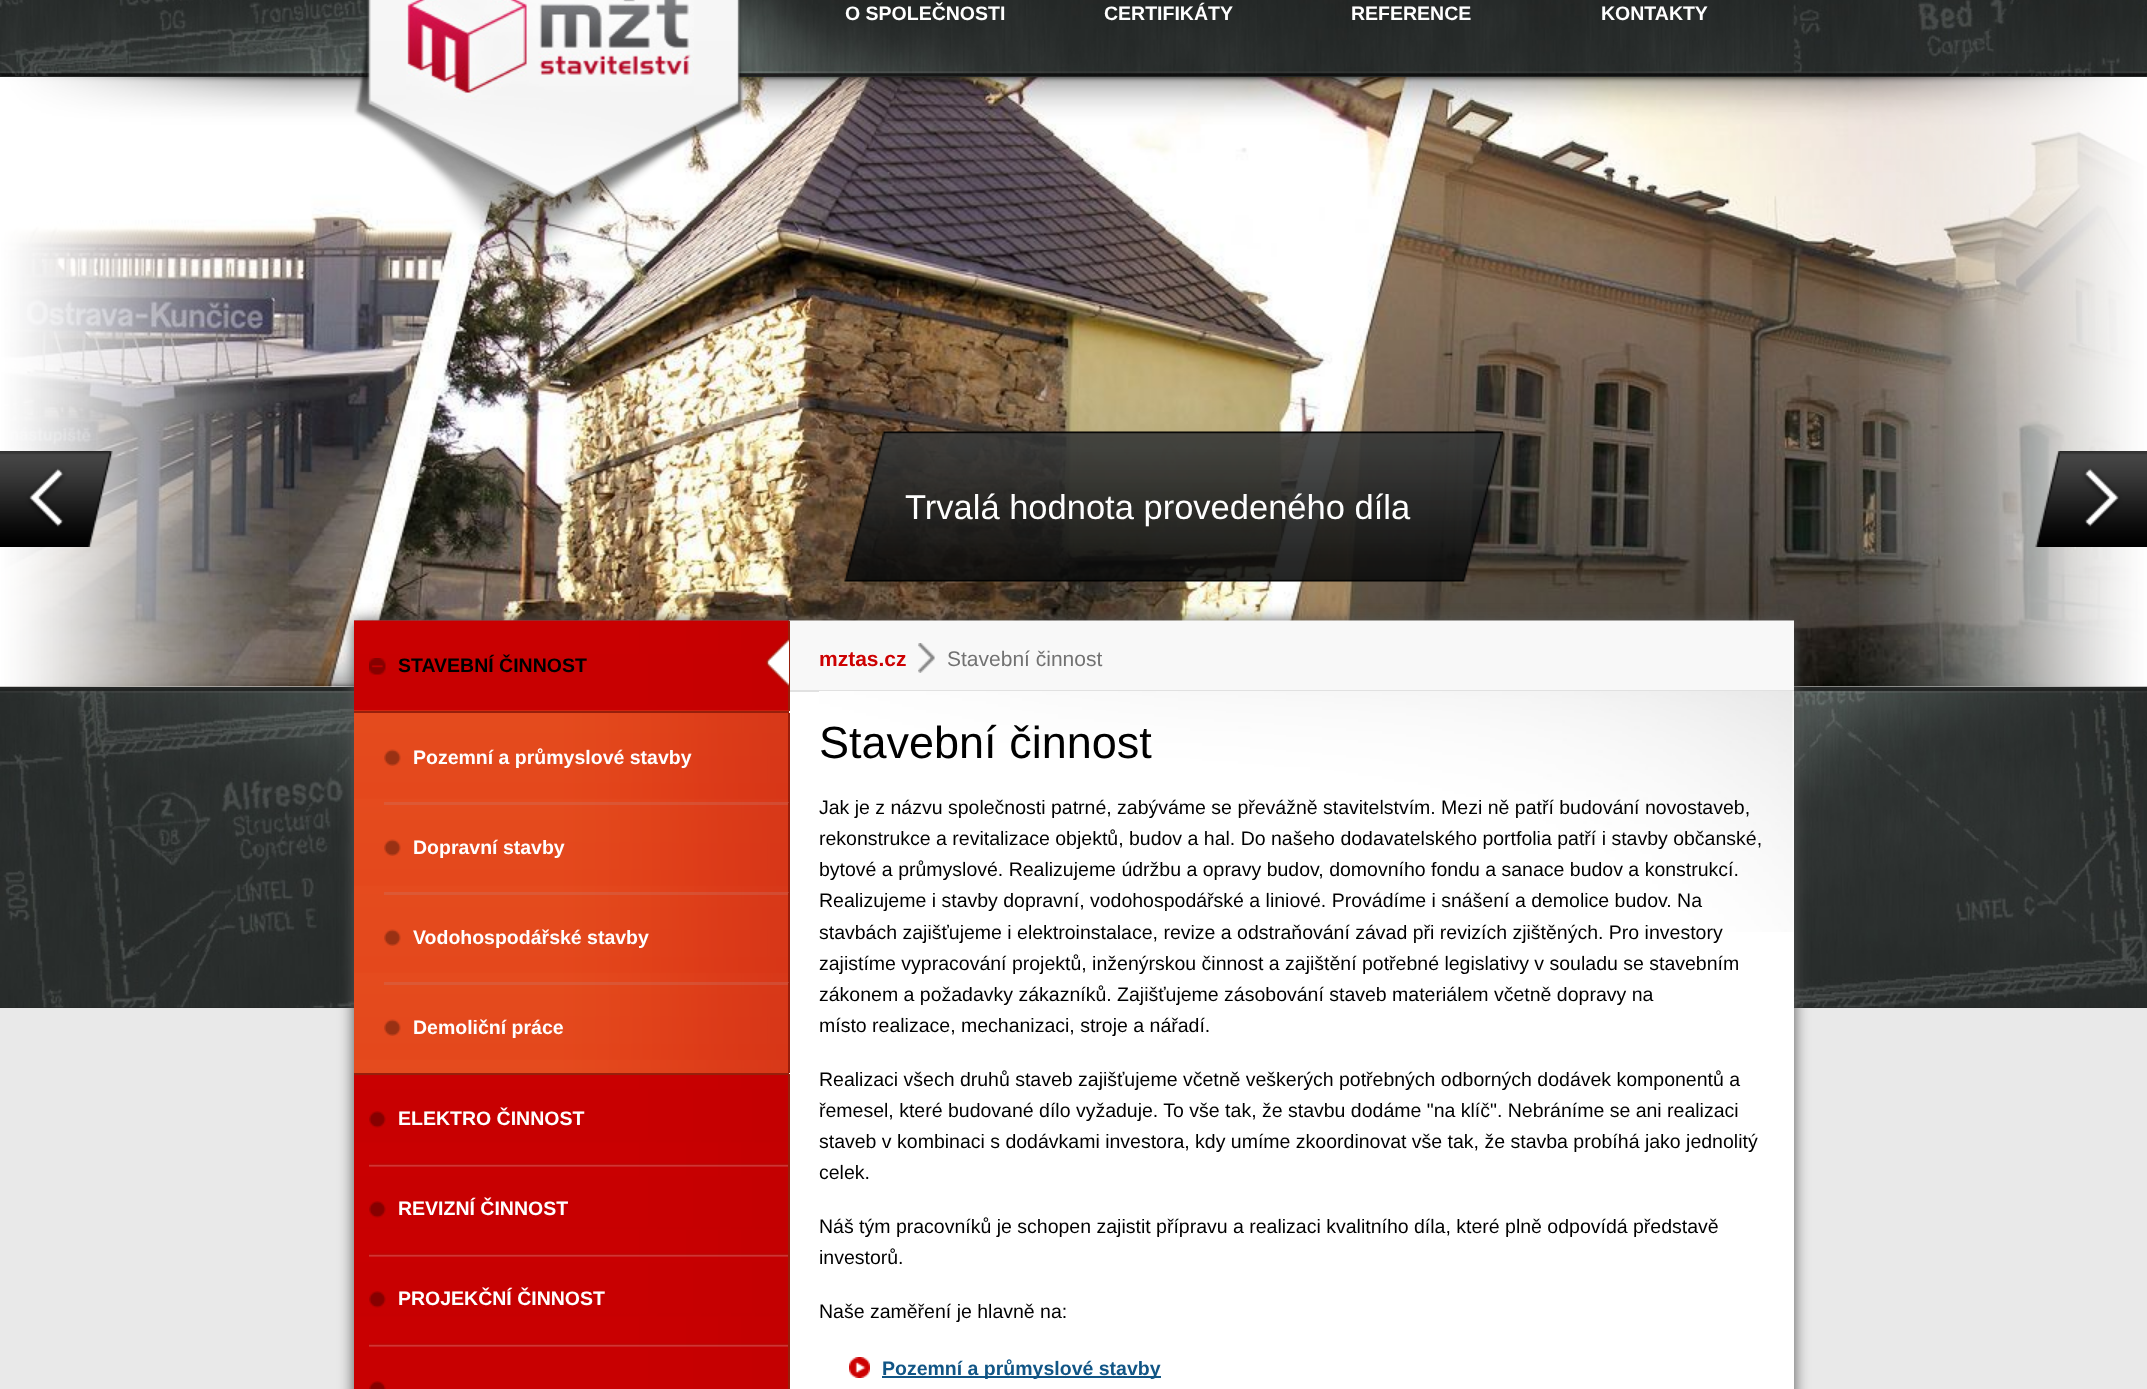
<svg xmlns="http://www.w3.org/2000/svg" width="2147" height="1389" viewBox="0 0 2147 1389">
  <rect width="100%" height="100%" fill="#e9e9e9"/>
  <path d="M0 76h2147v1H0z" fill="#242726"/>
  <image x="0" y="0" width="2147" height="76" href="img/1.png"/>
  <path d="M0 686h2147v1H0z" fill="#fff"/>
  <image x="0" y="77" width="2147" height="610" href="img/6.png"/>
  <image x="354" y="0" width="390" height="261" href="img/2.png"/>
  <image x="406" y="0" width="288" height="100" href="img/3.png"/>
  <path d="M0 687h2147v321H0z" fill="#242726"/>
  <image x="0" y="689" width="2147" height="319" href="img/4.png"/>
  <image x="0" y="77" width="289" height="610" href="img/5.png"/>
  <image x="0" y="451" width="113" height="96" href="img/7.png"/>
  <image x="1859" y="77" width="288" height="610" href="img/10.png"/>
  <image x="2035" y="451" width="112" height="96" href="img/8.png"/>
  <image x="844" y="431" width="659" height="151" href="img/9.png"/>
  <path d="M354 621h1440v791H354z" fill="#555" filter="blur(7.5px)"/>
  <image x="354" y="620" width="1440" height="1" href="img/11.png"/>
  <image x="354" y="620" width="435" height="769" href="img/12.png"/>
  <image x="369" y="658" width="17" height="17" href="img/13.png"/>
  <path d="M789 692h1005v697H789z" fill="#fff"/>
  <path d="M789 690h1005v2H789z" fill="#e1e1e1"/>
  <path d="M788 621h2v90H788z" fill="#971f0b"/>
  <image x="766" y="638" width="23" height="49" href="img/14.png"/>
  <image x="354" y="710" width="435" height="363" href="img/15.png"/>
  <path d="M354 711h435v2H354z" fill="#971f0b"/>
  <path d="M354 1073h435v2H354z" fill="#971f0b"/>
  <image x="384" y="749" width="17" height="17" href="img/16.png"/>
  <path d="M788 713h2v90H788z" fill="#971f0b"/>
  <image x="384" y="839" width="17" height="17" href="img/17.png"/>
  <path d="M384 802h405v3H384z" fill="#c8837845"/>
  <path d="M788 803h2v90H788z" fill="#971f0b"/>
  <image x="384" y="929" width="17" height="17" href="img/18.png"/>
  <path d="M384 892h405v3H384z" fill="#c8837845"/>
  <path d="M788 893h2v90H788z" fill="#971f0b"/>
  <image x="384" y="1019" width="17" height="17" href="img/19.png"/>
  <path d="M384 982h405v3H384z" fill="#c8837845"/>
  <path d="M788 983h2v90H788z" fill="#971f0b"/>
  <image x="369" y="1111" width="17" height="17" href="img/20.png"/>
  <path d="M788 1074h2v90H788z" fill="#971f0b"/>
  <image x="369" y="1201" width="17" height="17" href="img/20.png"/>
  <image x="369" y="1163" width="420" height="4" href="img/21.png"/>
  <path d="M788 1164h2v90H788z" fill="#971f0b"/>
  <image x="369" y="1291" width="17" height="17" href="img/20.png"/>
  <image x="369" y="1253" width="420" height="4" href="img/21.png"/>
  <path d="M788 1254h2v90H788z" fill="#971f0b"/>
  <image x="369" y="1381" width="17" height="8" href="img/22.png"/>
  <image x="369" y="1343" width="420" height="4" href="img/21.png"/>
  <path d="M788 1344h2v45H788z" fill="#971f0b"/>
  <path d="M790 621h1004v69H790z" fill="#f8f8f8"/>
  <image x="918" y="643" width="17" height="30" href="img/23.png"/>
  <image x="819" y="691" width="975" height="241" href="img/24.png"/>
  <image x="849" y="1357" width="21" height="21" href="img/25.png"/>
  <path d="M882 1376h279v2H882z" fill="#115585"/>
  <g font-family="Liberation Sans" font-size="19.5" font-weight="bold" fill="#fff">
    <text x="845" y="20">O SPOLEČNOSTI</text>
    <text x="1104" y="20">CERTIFIKÁTY</text>
    <text x="1351" y="20">REFERENCE</text>
    <text x="1601" y="20">KONTAKTY</text>
  </g>
  <text x="905" y="519" font-family="Liberation Sans" font-size="34.5" fill="#fff">Trvalá hodnota provedeného díla</text>
  <text x="398" y="672" font-family="Liberation Sans" font-size="19.5" font-weight="bold" fill="#000">STAVEBNÍ ČINNOST</text>
  <g font-family="Liberation Sans" font-size="19.5" font-weight="bold" fill="#fff">
    <text x="413" y="764">Pozemní a průmyslové stavby</text>
    <text x="413" y="854">Dopravní stavby</text>
    <text x="413" y="944">Vodohospodářské stavby</text>
    <text x="413" y="1034">Demoliční práce</text>
    <text x="398" y="1125">ELEKTRO ČINNOST</text>
    <text x="398" y="1215">REVIZNÍ ČINNOST</text>
    <text x="398" y="1305">PROJEKČNÍ ČINNOST</text>
  </g>
  <text x="819" y="666" font-family="Liberation Sans" font-size="21" font-weight="bold" fill="#cd0102">mztas.cz</text>
  <text x="947" y="666" font-family="Liberation Sans" font-size="21" fill="#727272">Stavební činnost</text>
  <text x="819" y="758" font-family="Liberation Sans" font-size="45" fill="#000">Stavební činnost</text>
  <g font-family="Liberation Sans" font-size="19.5" fill="#000">
    <text x="819" y="814">Jak je z názvu společnosti patrné, zabýváme se převážně stavitelstvím. Mezi ně patří budování novostaveb,</text>
    <text x="819" y="845">rekonstrukce a revitalizace objektů, budov a hal. Do našeho dodavatelského portfolia patří i stavby občanské,</text>
    <text x="819" y="876">bytové a průmyslové. Realizujeme údržbu a opravy budov, domovního fondu a sanace budov a konstrukcí.</text>
    <text x="819" y="907">Realizujeme i stavby dopravní, vodohospodářské a liniové. Provádíme i snášení a demolice budov. Na</text>
    <text x="819" y="939">stavbách zajišťujeme i elektroinstalace, revize a odstraňování závad při revizích zjištěných. Pro investory</text>
    <text x="819" y="970">zajistíme vypracování projektů, inženýrskou činnost a zajištění potřebné legislativy v souladu se stavebním</text>
    <text x="819" y="1001">zákonem a požadavky zákazníků. Zajišťujeme zásobování staveb materiálem včetně dopravy na</text>
    <text x="819" y="1032">místo realizace, mechanizaci, stroje a nářadí.</text>
    <text x="819" y="1086">Realizaci všech druhů staveb zajišťujeme včetně veškerých potřebných odborných dodávek komponentů a</text>
    <text x="819" y="1117">řemesel, které budované dílo vyžaduje. To vše tak, že stavbu dodáme "na klíč". Nebráníme se ani realizaci</text>
    <text x="819" y="1148">staveb v kombinaci s dodávkami investora, kdy umíme zkoordinovat vše tak, že stavba probíhá jako jednolitý</text>
    <text x="819" y="1179">celek.</text>
    <text x="819" y="1233">Náš tým pracovníků je schopen zajistit přípravu a realizaci kvalitního díla, které plně odpovídá představě</text>
    <text x="819" y="1264">investorů.</text>
    <text x="819" y="1318">Naše zaměření je hlavně na:</text>
  </g>
  <text x="882" y="1375" font-family="Liberation Sans" font-size="19.5" font-weight="bold" fill="#115585">Pozemní a průmyslové stavby</text>
</svg>
